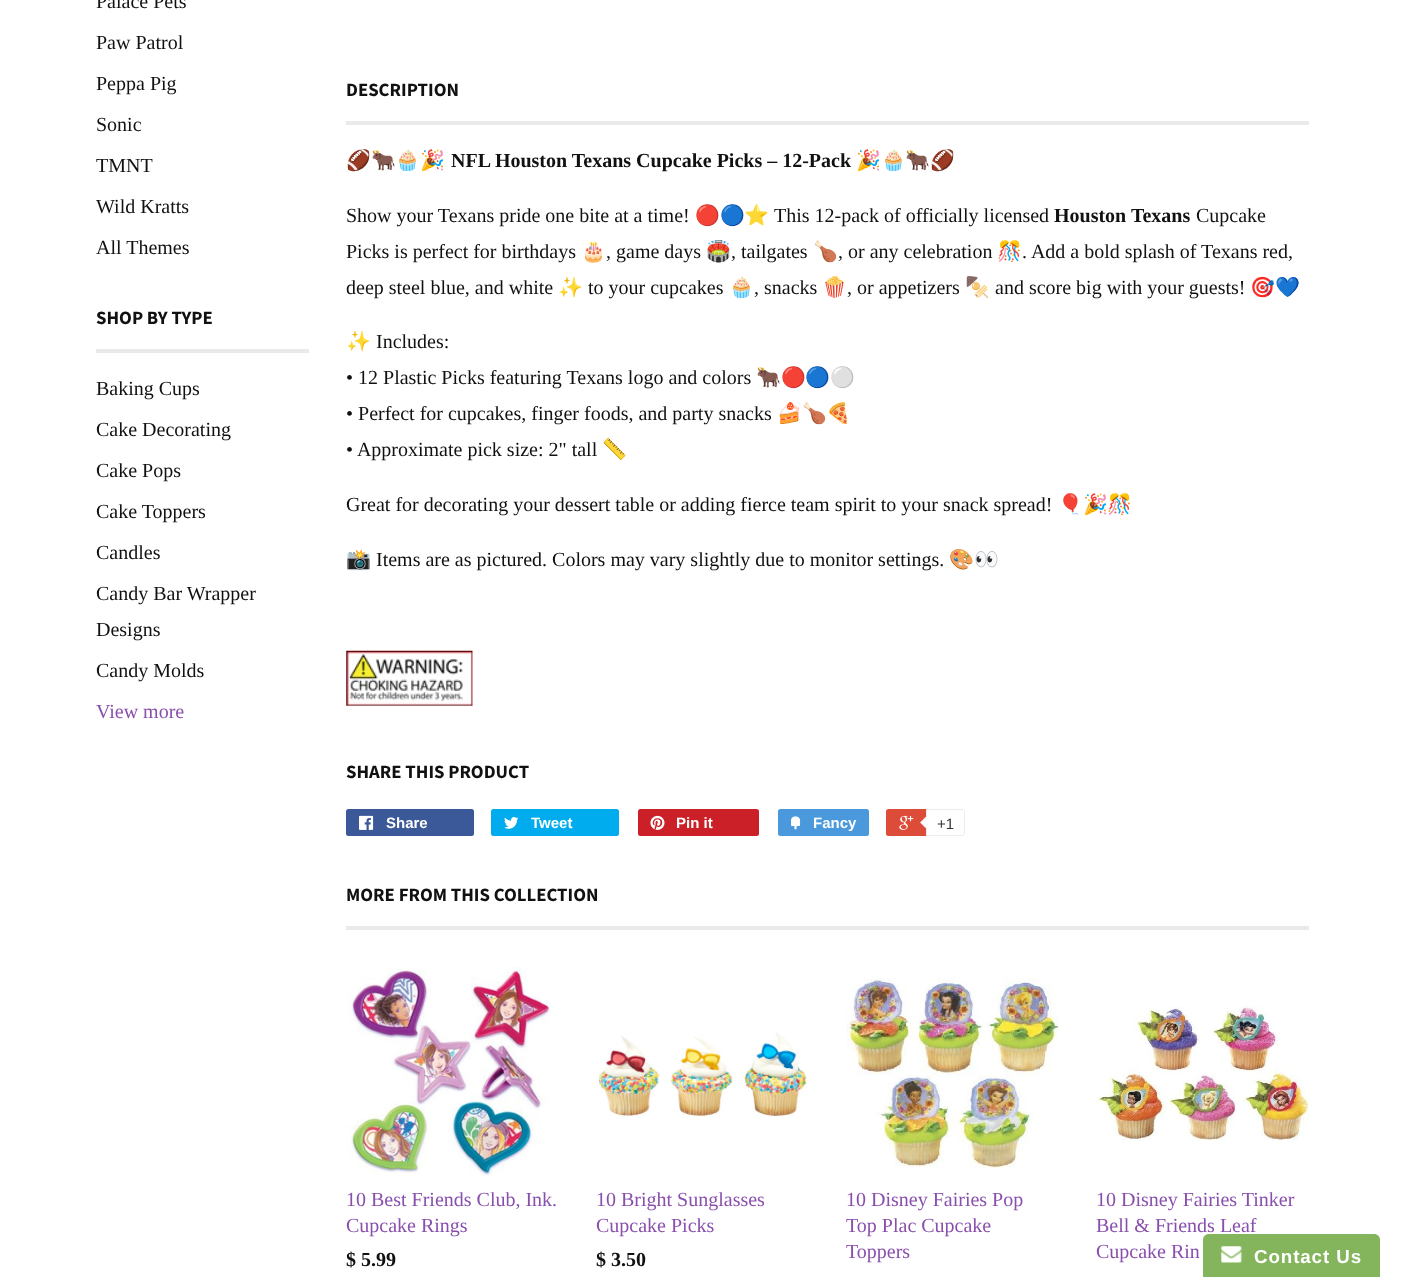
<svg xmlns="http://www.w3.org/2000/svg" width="1404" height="1277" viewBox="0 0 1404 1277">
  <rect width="100%" height="100%" fill="#fff"/>
  <path d="M96 349h213v4H96z" fill="#eaeaea"/>
  <path d="M346 121h963v4H346z" fill="#eaeaea"/>
  <image x="346" y="650" width="127" height="56" href="img/1.png"/>
  <rect x="346" y="809" width="128" height="27" rx="2.5" fill="#3b5998"/>
  <image x="359" y="815" width="15" height="15" href="img/2.png"/>
  <rect x="491" y="809" width="128" height="27" rx="2.5" fill="#00aced"/>
  <image x="504" y="817" width="15" height="12" href="img/3.png"/>
  <rect x="638" y="809" width="121" height="27" rx="2.5" fill="#cb2027"/>
  <image x="650" y="815" width="15" height="15" href="img/4.png"/>
  <rect x="778" y="809" width="91" height="27" rx="2.5" fill="#4999dc"/>
  <image x="791" y="816" width="10" height="14" href="img/5.png"/>
  <rect x="886" y="809" width="77" height="27" rx="2.5" fill="#dd4b39"/>
  <image x="899" y="815" width="15" height="15" href="img/6.png"/>
  <path d="M926.5 809.5H962.5C963.5 809.5 964.5 810.5 964.5 811.5V833.5C964.5 834.5 963.5 835.5 962.5 835.5H926.5Z" fill="#fff" stroke="#ececec"/>
  <path d="M927.5 815V830L920 822.5Z" fill="#ececec"/>
  <path d="M929 815V830L921 822.5Z" fill="#fff"/>
  <path d="M346 926h963v4H346z" fill="#eaeaea"/>
  <image x="347" y="967" width="205" height="210" href="img/7.png"/>
  <image x="597" y="1031" width="212" height="86" href="img/8.png"/>
  <image x="846" y="978" width="213" height="191" href="img/9.png"/>
  <image x="1096" y="1006" width="213" height="135" href="img/10.png"/>
  <path d="M1209 1234H1374C1377.5 1234 1380 1236.5 1380 1240V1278H1203V1240C1203 1236.5 1205.5 1234 1209 1234Z" fill="#84b45b"/>
  <image x="1221" y="1246" width="21" height="17" href="img/11.png"/>
  <g font-family="Liberation Serif" font-size="20" fill="#111">
    <text x="96" y="8">Palace Pets</text>
    <text x="96" y="49">Paw Patrol</text>
    <text x="96" y="90">Peppa Pig</text>
    <text x="96" y="131">Sonic</text>
    <text x="96" y="172">TMNT</text>
    <text x="96" y="213">Wild Kratts</text>
    <text x="96" y="254">All Themes</text>
  </g>
  <text x="96" y="324" font-family="Source Sans Pro" font-size="18.75" font-weight="bold" fill="#111">SHOP BY TYPE</text>
  <g font-family="Liberation Serif" font-size="20" fill="#111">
    <text x="96" y="395">Baking Cups</text>
    <text x="96" y="436">Cake Decorating</text>
    <text x="96" y="477">Cake Pops</text>
    <text x="96" y="518">Cake Toppers</text>
    <text x="96" y="559">Candles</text>
    <text x="96" y="600">Candy Bar Wrapper</text>
    <text x="96" y="636">Designs</text>
    <text x="96" y="677">Candy Molds</text>
  </g>
  <text x="96" y="718" font-family="Liberation Serif" font-size="20" fill="#894fad">View more</text>
  <text x="346" y="96" font-family="Source Sans Pro" font-size="18.75" font-weight="bold" fill="#111">DESCRIPTION</text>
  <text x="346" y="167" font-family="Noto Color Emoji" font-size="20" fill="#111">🏈🐂🧁🎉</text>
  <text x="451" y="167" font-family="Liberation Serif" font-size="20" font-weight="bold" fill="#111">NFL Houston Texans Cupcake Picks – 12-Pack</text>
  <text x="856" y="167" font-family="Noto Color Emoji" font-size="20" fill="#111">🎉🧁🐂🏈</text>
  <text x="346" y="222" font-family="Liberation Serif" font-size="20" fill="#111">Show your Texans pride one bite at a time!</text>
  <text x="695" y="222" font-family="Noto Color Emoji" font-size="20" fill="#111">🔴🔵⭐</text>
  <text x="774" y="222" font-family="Liberation Serif" font-size="20" fill="#111">This 12-pack of officially licensed</text>
  <text x="1054" y="222" font-family="Liberation Serif" font-size="20" font-weight="bold" fill="#111">Houston Texans</text>
  <g font-family="Liberation Serif" font-size="20" fill="#111">
    <text x="1196" y="222">Cupcake</text>
    <text x="346" y="258">Picks is perfect for birthdays</text>
  </g>
  <text x="581" y="258" font-family="Noto Color Emoji" font-size="20" fill="#111">🎂</text>
  <text x="606" y="258" font-family="Liberation Serif" font-size="20" fill="#111">, game days</text>
  <text x="706" y="258" font-family="Noto Color Emoji" font-size="20" fill="#111">🏟️</text>
  <text x="731" y="258" font-family="Liberation Serif" font-size="20" fill="#111">, tailgates</text>
  <text x="813" y="258" font-family="Noto Color Emoji" font-size="20" fill="#111">🍗</text>
  <text x="838" y="258" font-family="Liberation Serif" font-size="20" fill="#111">, or any celebration</text>
  <text x="997" y="258" font-family="Noto Color Emoji" font-size="20" fill="#111">🎊</text>
  <g font-family="Liberation Serif" font-size="20" fill="#111">
    <text x="1022" y="258">. Add a bold splash of Texans red,</text>
    <text x="346" y="294">deep steel blue, and white</text>
  </g>
  <text x="558" y="294" font-family="Noto Color Emoji" font-size="20" fill="#111">✨</text>
  <text x="588" y="294" font-family="Liberation Serif" font-size="20" fill="#111">to your cupcakes</text>
  <text x="729" y="294" font-family="Noto Color Emoji" font-size="20" fill="#111">🧁</text>
  <text x="754" y="294" font-family="Liberation Serif" font-size="20" fill="#111">, snacks</text>
  <text x="822" y="294" font-family="Noto Color Emoji" font-size="20" fill="#111">🍿</text>
  <text x="847" y="294" font-family="Liberation Serif" font-size="20" fill="#111">, or appetizers</text>
  <text x="965" y="294" font-family="Noto Color Emoji" font-size="20" fill="#111">🍢</text>
  <text x="995" y="294" font-family="Liberation Serif" font-size="20" fill="#111">and score big with your guests!</text>
  <g font-family="Noto Color Emoji" font-size="20" fill="#111">
    <text x="1250" y="294">🎯💙</text>
    <text x="346" y="348">✨</text>
  </g>
  <g font-family="Liberation Serif" font-size="20" fill="#111">
    <text x="376" y="348">Includes:</text>
    <text x="346" y="384">• 12 Plastic Picks featuring Texans logo and colors</text>
  </g>
  <text x="756" y="384" font-family="Noto Color Emoji" font-size="20" fill="#111">🐂🔴🔵⚪</text>
  <text x="346" y="420" font-family="Liberation Serif" font-size="20" fill="#111">• Perfect for cupcakes, finger foods, and party snacks</text>
  <text x="777" y="420" font-family="Noto Color Emoji" font-size="20" fill="#111">🍰🍗🍕</text>
  <text x="346" y="456" font-family="Liberation Serif" font-size="20" fill="#111">• Approximate pick size: 2" tall</text>
  <text x="602" y="456" font-family="Noto Color Emoji" font-size="20" fill="#111">📏</text>
  <text x="346" y="511" font-family="Liberation Serif" font-size="20" fill="#111">Great for decorating your dessert table or adding fierce team spirit to your snack spread!</text>
  <g font-family="Noto Color Emoji" font-size="20" fill="#111">
    <text x="1058" y="511">🎈🎉🎊</text>
    <text x="346" y="566">📸</text>
  </g>
  <text x="376" y="566" font-family="Liberation Serif" font-size="20" fill="#111">Items are as pictured. Colors may vary slightly due to monitor settings.</text>
  <text x="949" y="566" font-family="Noto Color Emoji" font-size="20" fill="#111">🎨👀</text>
  <text x="346" y="778" font-family="Source Sans Pro" font-size="18.75" font-weight="bold" fill="#111">SHARE THIS PRODUCT</text>
  <g font-family="Liberation Sans" font-size="15" font-weight="bold" fill="#fff">
    <text x="386" y="828">Share</text>
    <text x="531" y="828">Tweet</text>
    <text x="676" y="828">Pin it</text>
    <text x="813" y="828">Fancy</text>
  </g>
  <text x="937" y="829" font-family="Liberation Sans" font-size="15" fill="#333">+1</text>
  <text x="346" y="901" font-family="Source Sans Pro" font-size="18.75" font-weight="bold" fill="#111">MORE FROM THIS COLLECTION</text>
  <g font-family="Liberation Serif" font-size="20" fill="#894fad">
    <text x="346" y="1206">10 Best Friends Club, Ink.</text>
    <text x="346" y="1232">Cupcake Rings</text>
  </g>
  <text x="346" y="1266" font-family="Liberation Serif" font-size="20" font-weight="bold" fill="#111">$ 5.99</text>
  <g font-family="Liberation Serif" font-size="20" fill="#894fad">
    <text x="596" y="1206">10 Bright Sunglasses</text>
    <text x="596" y="1232">Cupcake Picks</text>
  </g>
  <text x="596" y="1266" font-family="Liberation Serif" font-size="20" font-weight="bold" fill="#111">$ 3.50</text>
  <g font-family="Liberation Serif" font-size="20" fill="#894fad">
    <text x="846" y="1206">10 Disney Fairies Pop</text>
    <text x="846" y="1232">Top Plac Cupcake</text>
    <text x="846" y="1258">Toppers</text>
    <text x="1096" y="1206">10 Disney Fairies Tinker</text>
    <text x="1096" y="1232">Bell &amp; Friends Leaf</text>
    <text x="1096" y="1258">Cupcake Rin</text>
  </g>
  <text x="1254" y="1263" font-family="Liberation Sans" font-size="18.75" font-weight="bold" letter-spacing="0.9" fill="#fff">Contact Us</text>
</svg>
